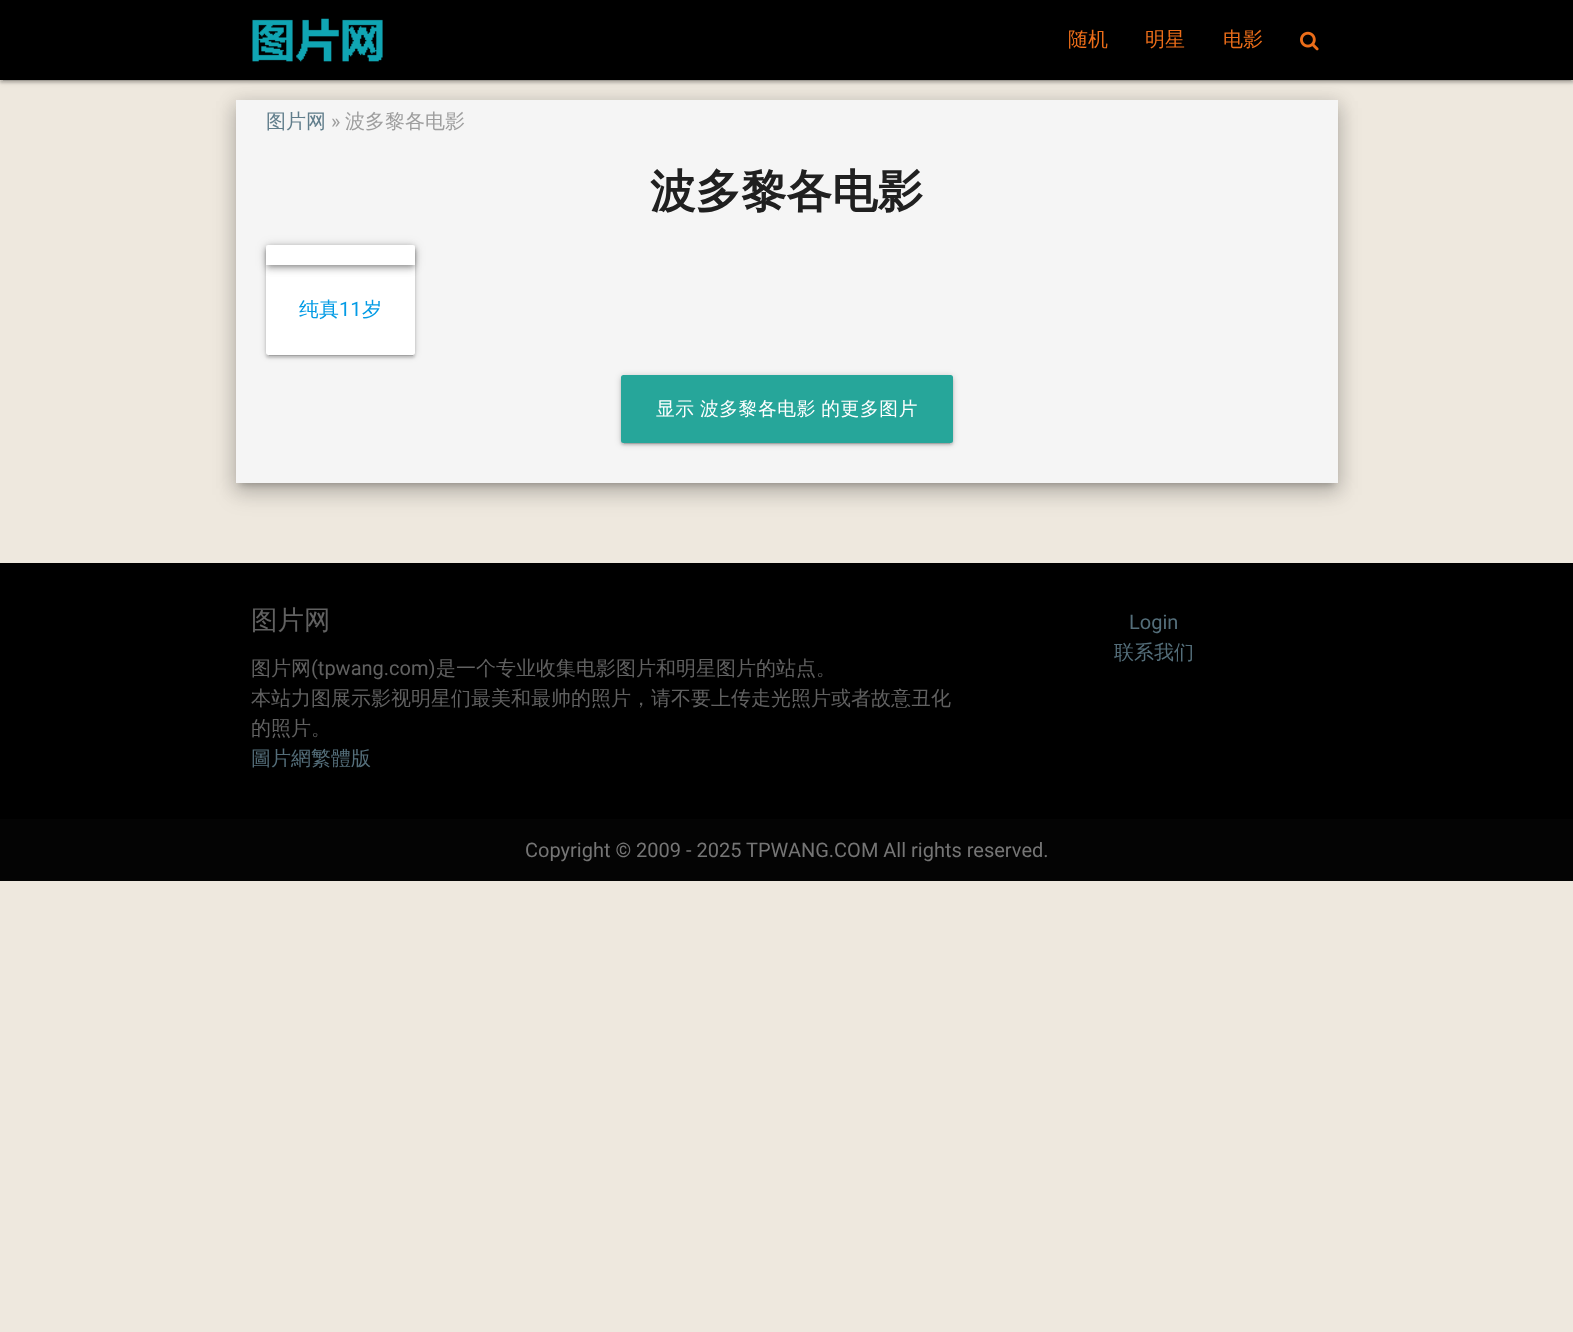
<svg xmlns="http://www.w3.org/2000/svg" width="1573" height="1332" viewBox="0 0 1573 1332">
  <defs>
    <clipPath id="clip1"><path d="M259 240H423V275H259ZM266 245H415V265H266Z" clip-rule="evenodd"/></clipPath>
    <clipPath id="clip2"><path d="M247 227H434V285H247ZM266 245H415V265H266Z" clip-rule="evenodd"/></clipPath>
    <clipPath id="clip3"><path d="M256 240H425V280H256ZM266 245H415V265H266Z" clip-rule="evenodd"/></clipPath>
  </defs>
  <rect width="100%" height="100%" fill="#eee8de"/>
  <path d="M0 1h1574v80H0z" fill="#00000033" filter="blur(3px)"/>
  <path d="M3 6h1568v75H3z" fill="#0000001f" filter="blur(0.5px)"/>
  <path d="M0 3h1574v80H0z" fill="#00000024" filter="blur(1px)"/>
  <path d="M0 0h1573v80H0z" fill="#000"/>
  <image x="252" y="18" width="131" height="44" href="img/1.png"/>
  <image x="1300" y="31" width="19" height="20" href="img/2.png"/>
  <path d="M240 110h1094v375H240z" fill="#00000033" filter="blur(3px)"/>
  <path d="M234 101h1106v388H234z" fill="#0000001f" filter="blur(9px)"/>
  <path d="M234 108h1106v387H234z" fill="#00000024" filter="blur(10.5px)"/>
  <path d="M236 100h1102v383H236z" fill="#f5f5f5"/>
  <rect x="266" y="246" width="149" height="110" rx="2.5" fill="#00000033" filter="blur(3px)"/>
  <path d="M269 251h144v105H269z" fill="#0000001f" filter="blur(0.5px)"/>
  <rect x="266" y="248" width="149" height="110" rx="2.5" fill="#00000024" filter="blur(1px)"/>
  <rect x="266" y="245" width="149" height="110" rx="2.5" fill="#fff"/>
  <g clip-path="url(#clip1)">
    <path d="M268 249h146v17H268z" fill="#0000004d" filter="blur(2.5px)"/>
  </g>
  <g clip-path="url(#clip2)">
    <path d="M266 246h149v20H266z" fill="#0000001f" filter="blur(6px)"/>
  </g>
  <g clip-path="url(#clip3)">
    <path d="M266 250h149v20H266z" fill="#00000024" filter="blur(3px)"/>
  </g>
  <rect x="621" y="376" width="332" height="68" rx="2.5" fill="#00000033" filter="blur(3px)"/>
  <path d="M624 381h326v63H624z" fill="#0000001f" filter="blur(0.5px)"/>
  <rect x="621" y="378" width="332" height="67" rx="2.5" fill="#00000024" filter="blur(1px)"/>
  <rect x="621" y="375" width="332" height="68" rx="2.5" fill="#26a69a"/>
  <path d="M0 563h1573v256H0z" fill="#000"/>
  <path d="M0 819h1573v62H0z" fill="#040404"/>
  <g font-family="WenQuanYi Zen Hei" font-size="20" font-weight="500" fill="#ec6d19">
    <text x="1068" y="46">随机</text>
    <text x="1145" y="46">明星</text>
    <text x="1223" y="46">电影</text>
  </g>
  <text x="266" y="128" font-family="WenQuanYi Zen Hei" font-size="20" font-weight="500" fill="#607d8b">图片网</text>
  <text x="331" y="128" font-family="Roboto" font-size="20" fill="#9e9e9e">»</text>
  <text x="345" y="128" font-family="WenQuanYi Zen Hei" font-size="20" font-weight="500" fill="#9e9e9e">波多黎各电影</text>
  <text x="650" y="207" font-family="WenQuanYi Zen Hei" font-size="45.5" font-weight="bold" fill="#202020">波多黎各电影</text>
  <text x="299" y="316" font-family="WenQuanYi Zen Hei" font-size="20" font-weight="500" fill="#039be5">纯真</text>
  <text x="339" y="316" font-family="Roboto" font-size="20" fill="#039be5">11</text>
  <text x="362" y="316" font-family="WenQuanYi Zen Hei" font-size="20" font-weight="500" fill="#039be5">岁</text>
  <text x="656" y="415" word-spacing="-1" font-family="WenQuanYi Zen Hei" font-size="18.75" font-weight="500" letter-spacing="0.6" fill="#fff">显示 波多黎各电影 的更多图片</text>
  <text x="251" y="629" font-family="WenQuanYi Zen Hei" font-size="26.5" font-weight="500" fill="#616161">图片网</text>
  <text x="251" y="675" font-family="WenQuanYi Zen Hei" font-size="20" font-weight="500" fill="#616161">图片网</text>
  <text x="311" y="675" font-family="Roboto" font-size="20" fill="#616161">(tpwang.com)</text>
  <g font-family="WenQuanYi Zen Hei" font-size="20" font-weight="500" fill="#616161">
    <text x="436" y="675">是一个专业收集电影图片和明星图片的站点。</text>
    <text x="251" y="705">本站力图展示影视明星们最美和最帅的照片，请不要上传走光照片或者故意丑化</text>
    <text x="251" y="735">的照片。</text>
  </g>
  <text x="251" y="765" font-family="WenQuanYi Zen Hei" font-size="20" font-weight="500" fill="#546e7a">圖片網繁體版</text>
  <text x="1129" y="629" font-family="Roboto" font-size="20" fill="#546e7a">Login</text>
  <text x="1114" y="659" font-family="WenQuanYi Zen Hei" font-size="20" font-weight="500" fill="#546e7a">联系我们</text>
  <text x="525" y="857" font-family="Roboto" font-size="20" fill="#757575">Copyright © 2009 - 2025 TPWANG.COM All rights reserved.</text>
</svg>
